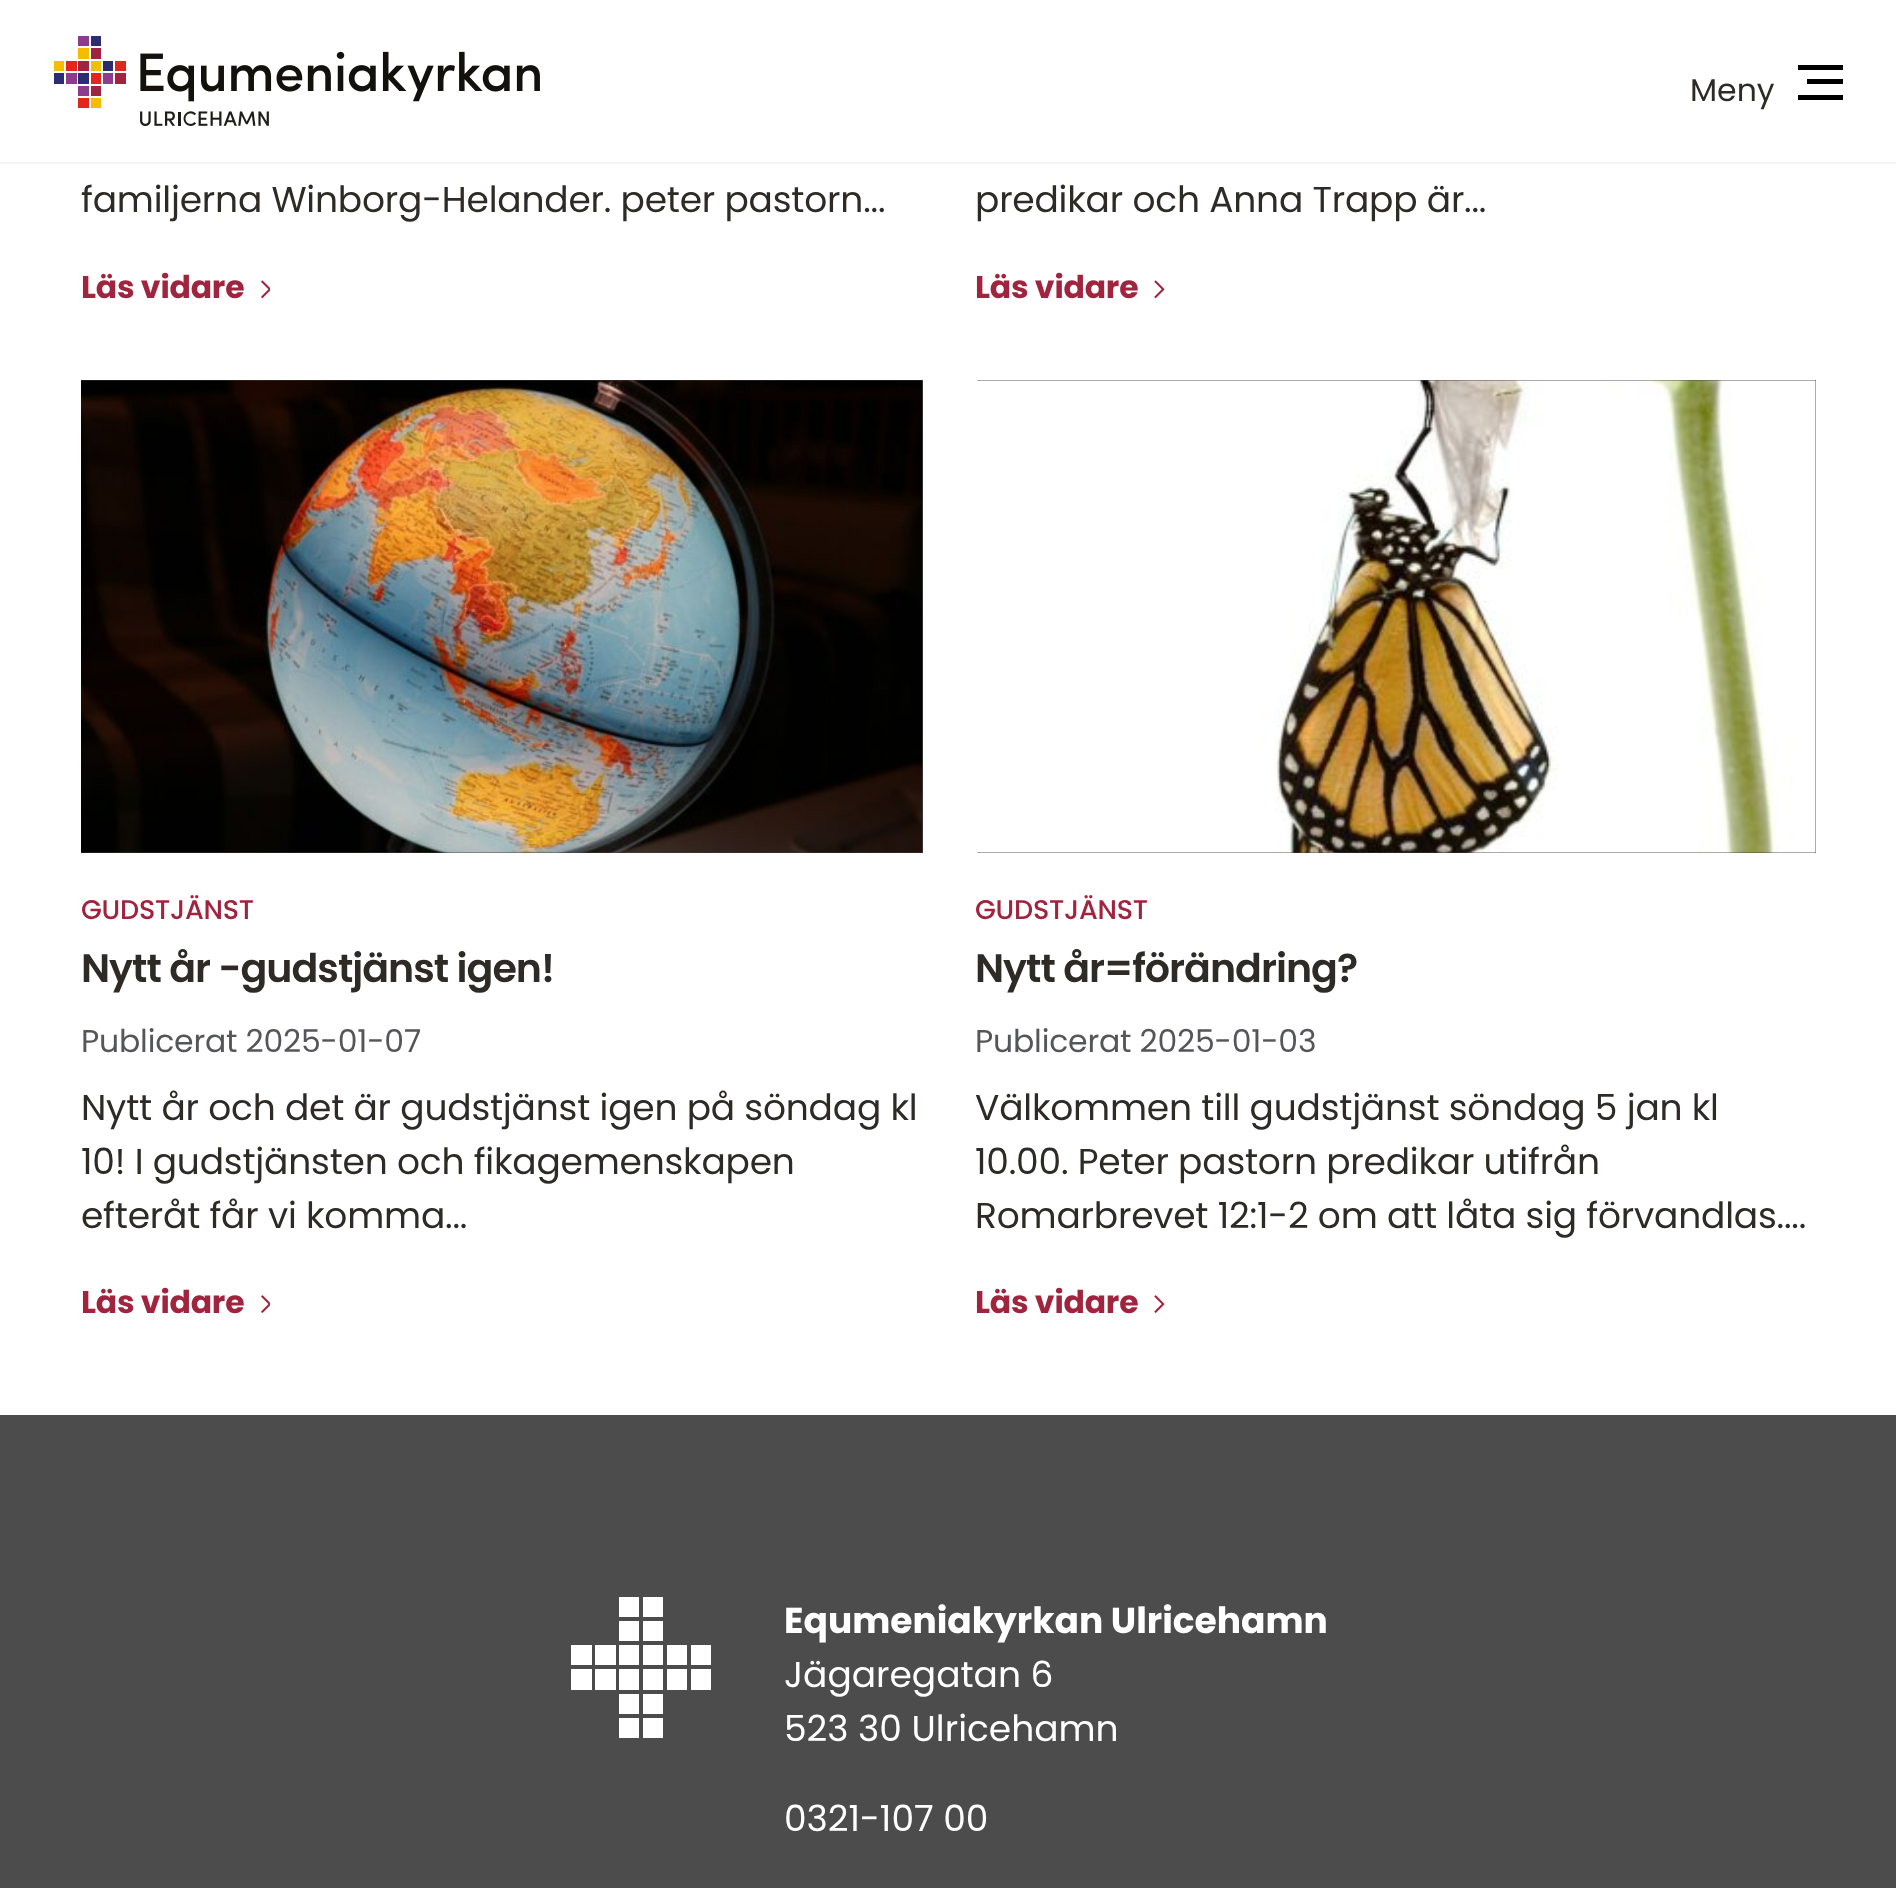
<svg xmlns="http://www.w3.org/2000/svg" width="1896" height="1888" viewBox="0 0 1896 1888">
  <rect width="100%" height="100%" fill="#fff"/>
  <path d="M0 162h1896v2H0z" fill="#f3f3f3"/>
  <image x="54" y="36" width="486" height="90" href="img/1.png"/>
  <path d="M1798 65h45v5H1798z" fill="#000"/>
  <path d="M1807 79h36v5H1807z" fill="#000"/>
  <path d="M1798 95h45v5H1798z" fill="#000"/>
  <image x="261" y="280" width="9" height="19" href="img/2.png"/>
  <image x="1154" y="280" width="11" height="19" href="img/3.png"/>
  <path d="M81 380h842v473H81z" fill="#414141"/>
  <image x="81" y="380" width="842" height="473" href="img/4.png"/>
  <image x="261" y="1295" width="9" height="18" href="img/5.png"/>
  <path d="M977 380h839v473H977z" fill="#414141"/>
  <image x="977" y="380" width="839" height="473" href="img/6.png"/>
  <image x="1154" y="1295" width="11" height="18" href="img/7.png"/>
  <path d="M0 1415h1896v473H0z" fill="#4d4c4c"/>
  <path d="M619 1597h20v20H619z" fill="#fff"/>
  <path d="M643 1597h20v20H643z" fill="#fff"/>
  <path d="M619 1621h20v20H619z" fill="#fff"/>
  <path d="M643 1621h20v20H643z" fill="#fff"/>
  <path d="M571 1645h21v20H571z" fill="#fff"/>
  <path d="M595 1645h21v20H595z" fill="#fff"/>
  <path d="M619 1645h20v20H619z" fill="#fff"/>
  <path d="M643 1645h20v20H643z" fill="#fff"/>
  <path d="M667 1645h20v20H667z" fill="#fff"/>
  <path d="M691 1645h20v20H691z" fill="#fff"/>
  <path d="M571 1669h21v21H571z" fill="#fff"/>
  <path d="M595 1669h21v21H595z" fill="#fff"/>
  <path d="M619 1669h20v21H619z" fill="#fff"/>
  <path d="M643 1669h20v21H643z" fill="#fff"/>
  <path d="M667 1669h20v21H667z" fill="#fff"/>
  <path d="M691 1669h20v21H691z" fill="#fff"/>
  <path d="M619 1694h20v20H619z" fill="#fff"/>
  <path d="M643 1694h20v20H643z" fill="#fff"/>
  <path d="M619 1718h20v20H619z" fill="#fff"/>
  <path d="M643 1718h20v20H643z" fill="#fff"/>
  <text x="1690" y="101" font-family="Poppins" font-size="31.5" fill="#2e2a25">Meny</text>
  <text x="81" y="212" font-family="Poppins" font-size="36" letter-spacing="-0.2" fill="#2e2a25">familjerna Winborg-Helander. peter pastorn...</text>
  <text x="81" y="298" font-family="Poppins" font-size="31.5" font-weight="bold" letter-spacing="-0.2" fill="#a1243f">Läs vidare</text>
  <text x="975" y="212" font-family="Poppins" font-size="36" letter-spacing="-0.2" fill="#2e2a25">predikar och Anna Trapp är...</text>
  <text x="975" y="298" font-family="Poppins" font-size="31.5" font-weight="bold" letter-spacing="-0.2" fill="#a1243f">Läs vidare</text>
  <text x="81" y="919" font-family="Poppins" font-size="27" font-weight="500" letter-spacing="-0.25" fill="#a1243f">GUDSTJÄNST</text>
  <text x="81" y="982" font-family="Poppins" font-size="39.6" font-weight="600" letter-spacing="-1" fill="#2e2a25">Nytt år -gudstjänst igen!</text>
  <text x="81" y="1052" font-family="Poppins" font-size="31.5" letter-spacing="-0.2" fill="#55565a">Publicerat 2025-01-07</text>
  <g font-family="Poppins" font-size="36" letter-spacing="-0.2" fill="#2e2a25">
    <text x="81" y="1120">Nytt år och det är gudstjänst igen på söndag kl</text>
    <text x="81" y="1174">10! I gudstjänsten och fikagemenskapen</text>
    <text x="81" y="1228">efteråt får vi komma...</text>
  </g>
  <text x="81" y="1313" font-family="Poppins" font-size="31.5" font-weight="bold" letter-spacing="-0.2" fill="#a1243f">Läs vidare</text>
  <text x="975" y="919" font-family="Poppins" font-size="27" font-weight="500" letter-spacing="-0.25" fill="#a1243f">GUDSTJÄNST</text>
  <text x="975" y="982" font-family="Poppins" font-size="39.6" font-weight="600" letter-spacing="-1" fill="#2e2a25">Nytt år=förändring?</text>
  <text x="975" y="1052" font-family="Poppins" font-size="31.5" letter-spacing="-0.2" fill="#55565a">Publicerat 2025-01-03</text>
  <g font-family="Poppins" font-size="36" letter-spacing="-0.2" fill="#2e2a25">
    <text x="975" y="1120">Välkommen till gudstjänst söndag 5 jan kl</text>
    <text x="975" y="1174">10.00. Peter pastorn predikar utifrån</text>
    <text x="975" y="1228">Romarbrevet 12:1-2 om att låta sig förvandlas....</text>
  </g>
  <text x="975" y="1313" font-family="Poppins" font-size="31.5" font-weight="bold" letter-spacing="-0.2" fill="#a1243f">Läs vidare</text>
  <text x="784" y="1633" font-family="Poppins" font-size="36" font-weight="bold" fill="#fff">Equmeniakyrkan Ulricehamn</text>
  <g font-family="Poppins" font-size="36" fill="#fff">
    <text x="784" y="1687">Jägaregatan 6</text>
    <text x="784" y="1741">523 30 Ulricehamn</text>
    <text x="784" y="1831">0321-107 00</text>
  </g>
</svg>
